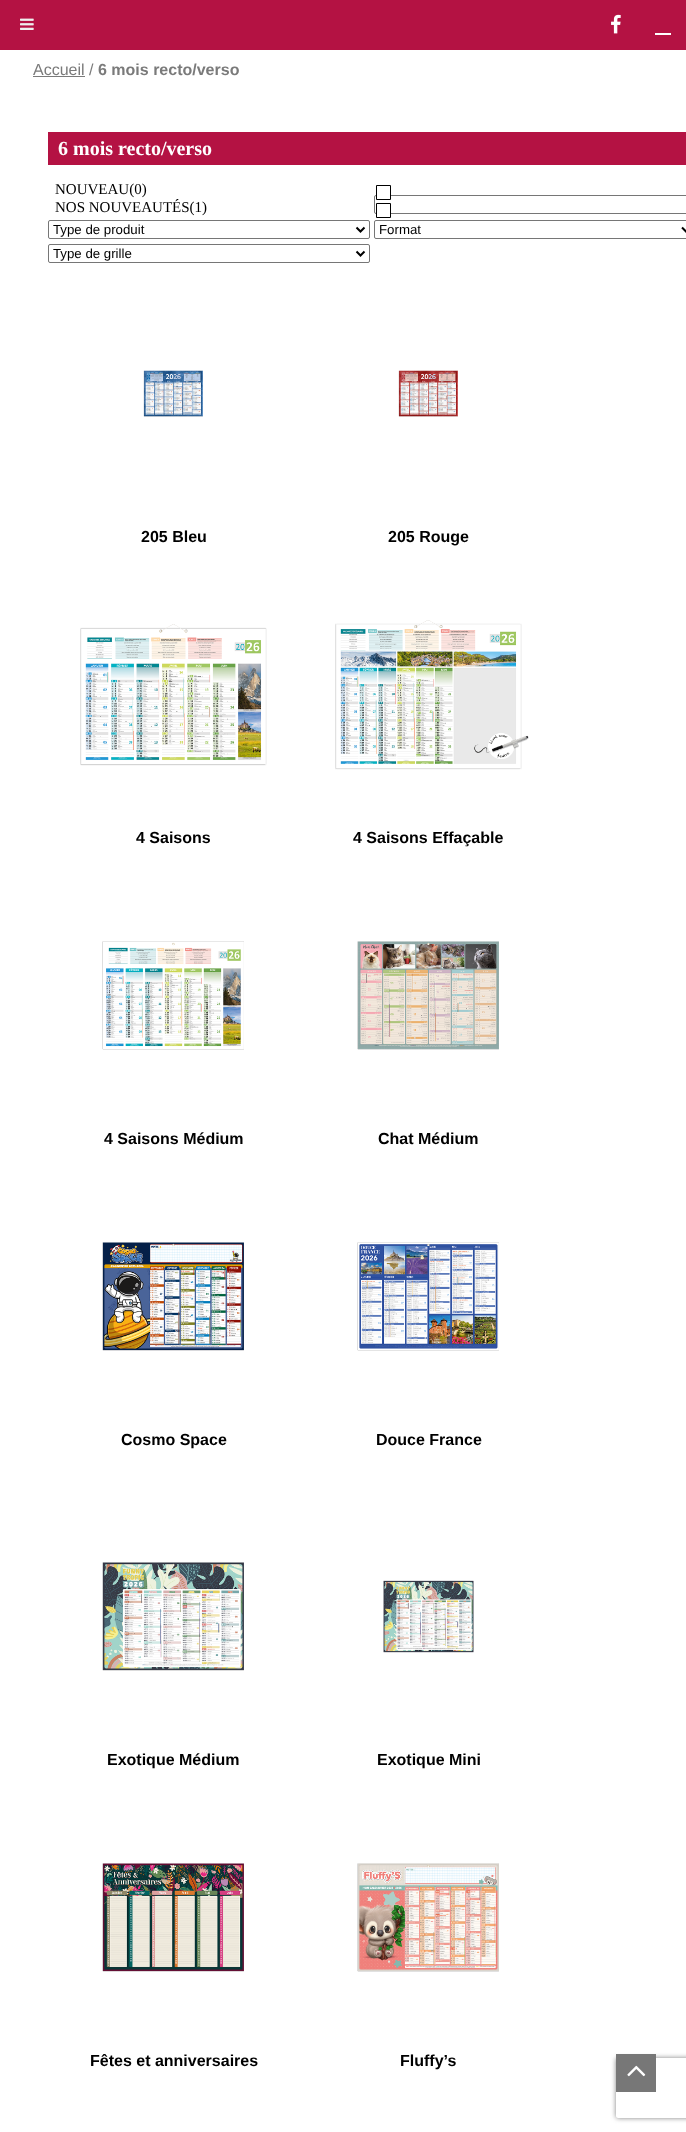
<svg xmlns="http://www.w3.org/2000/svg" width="686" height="2132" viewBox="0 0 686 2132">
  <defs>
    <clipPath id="clip1"><path d="M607 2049H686V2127H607ZM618 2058H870C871 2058 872 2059 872 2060V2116C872 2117 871 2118 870 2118H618C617 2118 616 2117 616 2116V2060C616 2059 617 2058 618 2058Z" clip-rule="evenodd"/></clipPath>
  </defs>
  <rect width="100%" height="100%" fill="#fff"/>
  <path d="M0 0h686v50H0z" fill="#b41243"/>
  <image x="611" y="14" width="10" height="20" href="img/1.png"/>
  <path d="M655 33h16v2H655z" fill="#fff"/>
  <image x="20" y="18" width="14" height="12" href="img/2.png"/>
  <path d="M33 76h52v1H33z" fill="#7a7a7a"/>
  <path d="M48 132h638v33H48z" fill="#b41243"/>
  <rect x="374.5" y="195.5" width="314" height="18" rx="1.5" fill="none" stroke="#767676"/>
  <path d="M377 195h13v1H377z" fill="#fff"/>
  <path d="M376.5 185.5h14v14H376.5z" fill="none" stroke="#000"/>
  <path d="M377 213h13v1H377z" fill="#fff"/>
  <path d="M376.5 203.5h14v14H376.5z" fill="none" stroke="#000"/>
  <rect x="48.5" y="220.5" width="321" height="18" rx="1.5" fill="none" stroke="#767676"/>
  <path d="M356.5 227.5L360.5 231.5L364.5 227.5" fill="none" stroke="#000" stroke-width="2"/>
  <rect x="374.5" y="220.5" width="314" height="18" rx="1.5" fill="none" stroke="#767676"/>
  <path d="M682 227.5L686 231.5L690 227.5" fill="none" stroke="#000" stroke-width="2"/>
  <rect x="48.5" y="244.5" width="321" height="18" rx="1.5" fill="none" stroke="#767676"/>
  <path d="M356.5 251.5L360.5 255.5L364.5 251.5" fill="none" stroke="#000" stroke-width="2"/>
  <image x="143" y="370" width="60" height="47" href="img/3.png"/>
  <image x="398" y="370" width="60" height="47" href="img/4.png"/>
  <image x="80" y="624" width="187" height="142" href="img/5.png"/>
  <image x="335" y="620" width="194" height="150" href="img/6.png"/>
  <image x="102" y="941" width="142" height="109" href="img/7.png"/>
  <image x="357" y="941" width="142" height="109" href="img/8.png"/>
  <image x="102" y="1242" width="142" height="109" href="img/9.png"/>
  <image x="357" y="1242" width="142" height="109" href="img/10.png"/>
  <image x="102" y="1562" width="142" height="109" href="img/11.png"/>
  <image x="383" y="1580" width="91" height="73" href="img/12.png"/>
  <image x="102" y="1863" width="142" height="109" href="img/13.png"/>
  <image x="357" y="1863" width="142" height="109" href="img/14.png"/>
  <g clip-path="url(#clip1)">
    <rect x="616" y="2058" width="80" height="60" rx="2" fill="#808080" filter="blur(2.5px)"/>
  </g>
  <path d="M616 2054h40v38H616z" fill="#777"/>
  <image x="627" y="2065" width="19" height="12" href="img/15.png"/>
  <text x="33" y="75" font-family="Liberation Sans" font-size="16" fill="#7a7a7a">Accueil /</text>
  <text x="98" y="75" font-family="Liberation Sans" font-size="16" font-weight="bold" fill="#7a7a7a">6 mois recto/verso</text>
  <text x="58" y="155" font-family="Liberation Serif" font-size="20" font-weight="bold" fill="#fff">6 mois recto/verso</text>
  <g font-family="Liberation Serif" font-size="15" fill="#000">
    <text x="55" y="194">NOUVEAU(0)</text>
    <text x="55" y="212">NOS NOUVEAUTÉS(1)</text>
  </g>
  <g font-family="Liberation Sans" font-size="13.25" fill="#000">
    <text x="53" y="234">Type de produit</text>
    <text x="379" y="234">Format</text>
    <text x="53" y="258">Type de grille</text>
  </g>
  <g font-family="Liberation Sans" font-size="16" font-weight="bold" fill="#000">
    <text x="141" y="542">205 Bleu</text>
    <text x="388" y="542">205 Rouge</text>
    <text x="136" y="843">4 Saisons</text>
    <text x="353" y="843">4 Saisons Effaçable</text>
    <text x="104" y="1144">4 Saisons Médium</text>
    <text x="378" y="1144">Chat Médium</text>
    <text x="121" y="1445">Cosmo Space</text>
    <text x="376" y="1445">Douce France</text>
    <text x="107" y="1765">Exotique Médium</text>
    <text x="377" y="1765">Exotique Mini</text>
    <text x="90" y="2066">Fêtes et anniversaires</text>
    <text x="400" y="2066">Fluffy’s</text>
  </g>
</svg>
